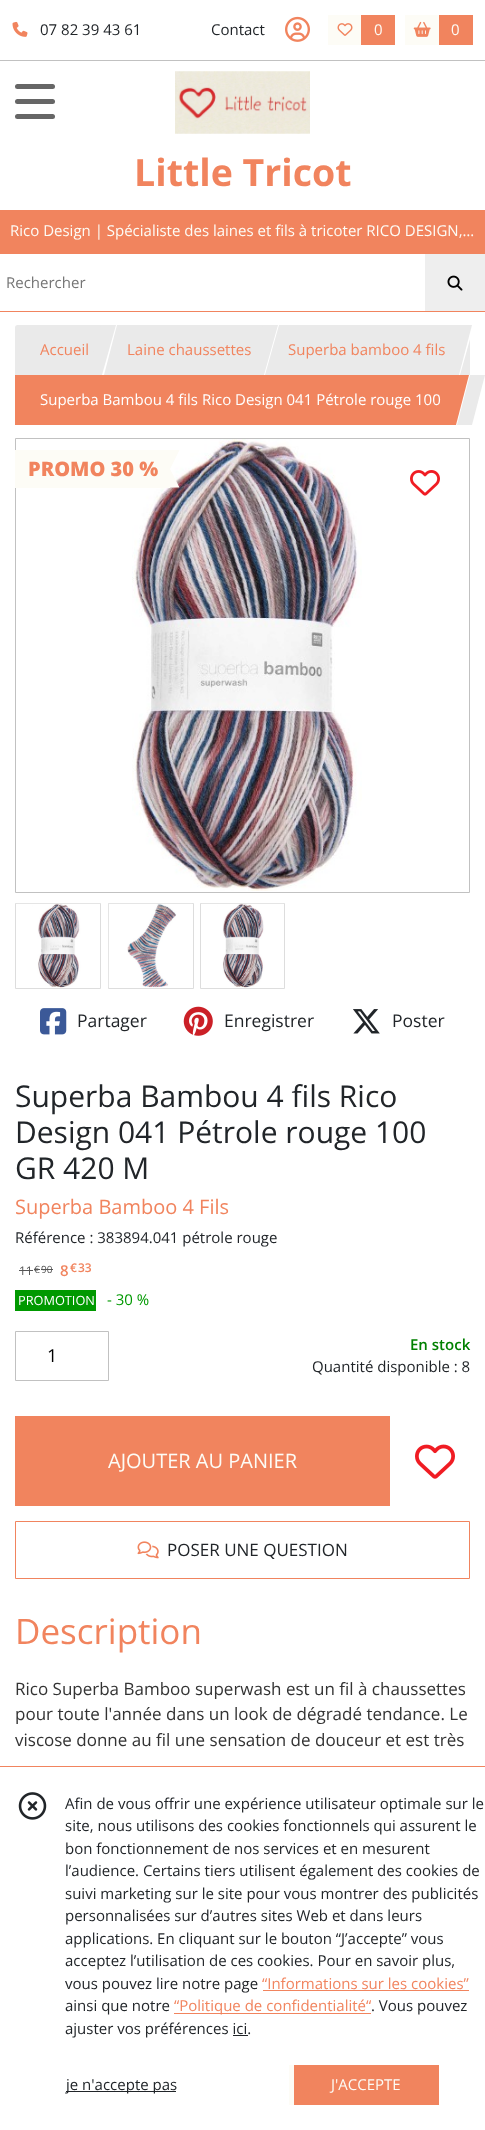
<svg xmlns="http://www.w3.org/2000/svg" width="485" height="2130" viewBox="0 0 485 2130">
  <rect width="100%" height="100%" fill="#fff"/>
  <path d="M0 60h485v1H0z" fill="#c1c1c1"/>
  <image x="12" y="21" width="16" height="16" href="img/1.png"/>
  <image x="285" y="16" width="25" height="26" href="img/2.png"/>
  <path d="M328 15h33v30H328z" fill="#fdfcf6"/>
  <image x="337" y="23" width="16" height="13" href="img/3.png"/>
  <path d="M361 15h34v30H361z" fill="#f1845e"/>
  <path d="M405 15h34v30H405z" fill="#fdfcf6"/>
  <image x="413" y="21" width="18" height="16" href="img/4.png"/>
  <path d="M439 15h34v30H439z" fill="#f1845e"/>
  <rect x="15" y="99" width="40" height="5" rx="2.5" fill="#666"/>
  <rect x="15" y="84" width="40" height="5" rx="2.5" fill="#666"/>
  <rect x="15" y="114" width="40" height="5" rx="2.5" fill="#666"/>
  <image x="175" y="71" width="135" height="63" href="img/5.png"/>
  <path d="M0 210h485v44H0z" fill="#f1845e"/>
  <path d="M0 311h485v1H0z" fill="#f1845e"/>
  <path d="M425 254h60v57H425z" fill="#eee"/>
  <image x="447" y="275" width="16" height="16" href="img/6.png"/>
  <rect x="15" y="325" width="455" height="100" rx="2.5" fill="#eaeaea"/>
  <path d="M115 325H117L104 375H101Z" fill="#fff"/>
  <path d="M276 325H279L265 375H263Z" fill="#fff"/>
  <path d="M471 325H474L460 375H458Z" fill="#fff"/>
  <path d="M15 375h454v50H15z" fill="#f1845e"/>
  <path d="M469 375H472L458 425H456Z" fill="#fff"/>
  <path d="M470 375H485L472 425H457Z" fill="#eaeaea"/>
  <path d="M15.5 438.5h454v454H15.5z" fill="none" stroke="#c1c1c1"/>
  <image x="132" y="439" width="230" height="452" href="img/7.png"/>
  <path d="M15 450h155v38H15z" fill="#fdfcf6"/>
  <path d="M170 450H179.5L170 469L179.5 487.5H170Z" fill="#fdfcf6"/>
  <image x="410" y="470" width="30" height="26" href="img/8.png"/>
  <path d="M15.5 903.5h85v85H15.5z" fill="none" stroke="#ddd"/>
  <image x="16" y="903" width="84" height="85" href="img/9.png"/>
  <path d="M108.5 903.5h85v85H108.5z" fill="none" stroke="#ddd"/>
  <image x="108" y="903" width="85" height="85" href="img/10.png"/>
  <path d="M200.5 903.5h84v85H200.5z" fill="none" stroke="#ddd"/>
  <image x="201" y="903" width="83" height="85" href="img/11.png"/>
  <image x="40" y="1008" width="27" height="27" href="img/12.png"/>
  <image x="183" y="1006" width="30" height="30" href="img/13.png"/>
  <image x="353" y="1009" width="27" height="25" href="img/14.png"/>
  <path d="M19 1270h14v1H19z" fill="#555"/>
  <path d="M34 1269h6v1H34z" fill="#555"/>
  <path d="M41 1269h12v1H41z" fill="#555"/>
  <path d="M15 1290h81v21H15z" fill="#090"/>
  <path d="M15.5 1331.5h93v49H15.5z" fill="none" stroke="#c1c1c1"/>
  <path d="M15 1416h375v90H15z" fill="#f1845e"/>
  <image x="415" y="1444" width="40" height="35" href="img/15.png"/>
  <path d="M15.5 1521.5h454v57H15.5z" fill="none" stroke="#f1845e"/>
  <image x="137" y="1541" width="22" height="18" href="img/16.png"/>
  <path d="M0 1766h485v1H0z" fill="#f1845e"/>
  <image x="18" y="1792" width="29" height="28" href="img/17.png"/>
  <path d="M263 1990h206v1H263z" fill="#f1845e"/>
  <path d="M174 2013h197v1H174z" fill="#f1845e"/>
  <path d="M233 2035h15v1H233z" fill="#212529"/>
  <path d="M66 2091h110v1H66z" fill="#212529"/>
  <path d="M294 2065h145v40H294z" fill="#f1845e"/>
  <path d="M289 2065h5v40H289z" fill="#fdfcf6"/>
  <g font-family="Open Sans" font-size="15" fill="#212529">
    <text x="40" y="35">07 82 39 43 61</text>
    <text x="211" y="35">Contact</text>
  </g>
  <g font-family="Open Sans" font-size="15" fill="#fdfcf6">
    <text x="374" y="35">0</text>
    <text x="451" y="35">0</text>
  </g>
  <text x="134" y="186" font-family="Open Sans" font-size="37.5" font-weight="bold" fill="#f1845e">Little Tricot</text>
  <text x="10" y="236" font-family="Open Sans" font-size="15" fill="#fdfcf6">Rico Design | Spécialiste des laines et fils à tricoter RICO DESIGN,…</text>
  <text x="6" y="288" font-family="Open Sans" font-size="15" fill="#757575">Rechercher</text>
  <text x="40" y="355" font-family="Open Sans" font-size="15" fill="#f1845e">Accueil</text>
  <path d="M101 325H116L102 375H87Z" fill="#eaeaea"/>
  <text x="127" y="355" font-family="Open Sans" font-size="15" fill="#f1845e">Laine chaussettes</text>
  <path d="M263 325H278L264 375H249Z" fill="#eaeaea"/>
  <text x="288" y="355" font-family="Open Sans" font-size="15" fill="#f1845e">Superba bamboo 4 fils</text>
  <path d="M457 325H472L459 375H444Z" fill="#eaeaea"/>
  <text x="40" y="405" font-family="Open Sans" font-size="15" fill="#fff">Superba Bambou 4 fils Rico Design 041 Pétrole rouge 100</text>
  <text x="28" y="476" font-family="Open Sans" font-size="20" font-weight="800" fill="#f1845e">PROMO 30 %</text>
  <g font-family="Open Sans" font-size="17.5" fill="#212529">
    <text x="77" y="1027">Partager</text>
    <text x="224" y="1027">Enregistrer</text>
    <text x="392" y="1027">Poster</text>
  </g>
  <g font-family="Open Sans" font-size="30" fill="#212529">
    <text x="15" y="1107">Superba Bambou 4 fils Rico</text>
    <text x="15" y="1143">Design 041 Pétrole rouge 100</text>
    <text x="15" y="1179">GR 420 M</text>
  </g>
  <text x="15" y="1214" font-family="Open Sans" font-size="20" fill="#f1845e">Superba Bamboo 4 Fils</text>
  <text x="15" y="1243" font-family="Open Sans" font-size="15" fill="#212529">Référence : 383894.041 pétrole rouge</text>
  <text x="19" y="1275" font-family="Open Sans" font-size="12" fill="#555">11</text>
  <g font-family="Open Sans" font-size="10" fill="#555">
    <text x="34" y="1273">€</text>
    <text x="41" y="1273">90</text>
  </g>
  <text x="60" y="1276" font-family="Open Sans" font-size="15" font-weight="600" fill="#f1845e">8</text>
  <g font-family="Open Sans" font-size="12" font-weight="600" fill="#f1845e">
    <text x="70" y="1272">€</text>
    <text x="78" y="1272">33</text>
  </g>
  <text x="18" y="1305" font-family="Open Sans" font-size="12.75" fill="#fff">PROMOTION</text>
  <text x="107" y="1305" font-family="Open Sans" font-size="15" fill="#090">- 30 %</text>
  <text x="47" y="1362" font-family="Open Sans" font-size="18" fill="#000">1</text>
  <text x="410" y="1350" font-family="Open Sans" font-size="15" font-weight="600" fill="#008000">En stock</text>
  <text x="312" y="1372" font-family="Open Sans" font-size="15" fill="#212529">Quantité disponible : 8</text>
  <text x="108" y="1468" font-family="Open Sans" font-size="20" fill="#fdfcf6">AJOUTER AU PANIER</text>
  <text x="167" y="1556" font-family="Open Sans" font-size="17" fill="#212529">POSER UNE QUESTION</text>
  <text x="15" y="1644" font-family="Open Sans" font-size="35" fill="#f1845e">Description</text>
  <g font-family="Open Sans" font-size="17" fill="#333">
    <text x="15" y="1695">Rico Superba Bamboo superwash est un fil à chaussettes</text>
    <text x="15" y="1720">pour toute l'année dans un look de dégradé tendance. Le</text>
    <text x="15" y="1746">viscose donne au fil une sensation de douceur et est très</text>
  </g>
  <g font-family="Open Sans" font-size="15" fill="#212529">
    <text x="65" y="1809">Afin de vous offrir une expérience utilisateur optimale sur le</text>
    <text x="65" y="1831">site, nous utilisons des cookies fonctionnels qui assurent le</text>
    <text x="65" y="1854">bon fonctionnement de nos services et en mesurent</text>
    <text x="65" y="1876">l’audience. Certains tiers utilisent également des cookies de</text>
    <text x="65" y="1899">suivi marketing sur le site pour vous montrer des publicités</text>
    <text x="65" y="1921">personnalisées sur d’autres sites Web et dans leurs</text>
    <text x="65" y="1944">applications. En cliquant sur le bouton “J’accepte” vous</text>
    <text x="65" y="1966">acceptez l’utilisation de ces cookies. Pour en savoir plus,</text>
    <text x="65" y="1989">vous pouvez lire notre page</text>
  </g>
  <text x="262" y="1989" font-family="Open Sans" font-size="15" fill="#f1845e">“Informations sur les cookies”</text>
  <text x="65" y="2011" font-family="Open Sans" font-size="15" fill="#212529">ainsi que notre</text>
  <text x="174" y="2011" font-family="Open Sans" font-size="15" fill="#f1845e">“Politique de confidentialité“</text>
  <g font-family="Open Sans" font-size="15" fill="#212529">
    <text x="371" y="2011">. Vous pouvez</text>
    <text x="65" y="2034">ajuster vos préférences ici.</text>
    <text x="66" y="2090">je n'accepte pas</text>
  </g>
  <text x="331" y="2090" font-family="Open Sans" font-size="15" fill="#fdfcf6">J'ACCEPTE</text>
</svg>
